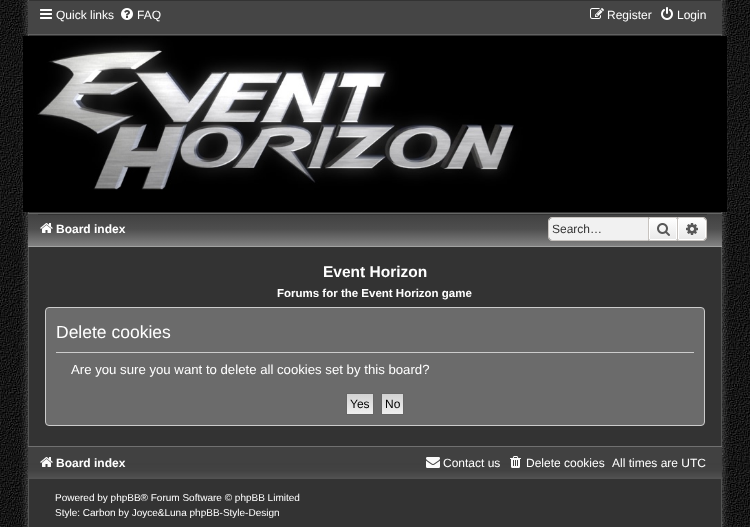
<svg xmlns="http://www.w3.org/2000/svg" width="750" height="527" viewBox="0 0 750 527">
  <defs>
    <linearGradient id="g1" gradientUnits="userSpaceOnUse" x1="375" y1="214" x2="375" y2="264"><stop offset="0" stop-color="#414141"/><stop offset="0.3" stop-color="#4e4e4e"/><stop offset="0.67" stop-color="#878787"/><stop offset="1" stop-color="#fafafa"/></linearGradient>
    <linearGradient id="g2" gradientUnits="userSpaceOnUse" x1="663" y1="218" x2="663" y2="240"><stop offset="0" stop-color="#fff"/><stop offset="1" stop-color="#e9e9e9"/></linearGradient>
    <linearGradient id="g3" gradientUnits="userSpaceOnUse" x1="692" y1="218" x2="692" y2="240"><stop offset="0" stop-color="#fff"/><stop offset="1" stop-color="#e9e9e9"/></linearGradient>
    <linearGradient id="g4" gradientUnits="userSpaceOnUse" x1="360" y1="394" x2="360" y2="414"><stop offset="0" stop-color="#d2d2d2"/><stop offset="1" stop-color="#efefef"/></linearGradient>
    <linearGradient id="g5" gradientUnits="userSpaceOnUse" x1="393" y1="394" x2="393" y2="414"><stop offset="0" stop-color="#d2d2d2"/><stop offset="1" stop-color="#efefef"/></linearGradient>
  </defs>
  <rect width="100%" height="100%" fill="#fff"/>
  <image x="0" y="0" width="750" height="527" href="img/1.png"/>
  <rect x="26" y="-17" width="698" height="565" rx="12" fill="#ffffff33" filter="blur(3px)"/>
  <path d="M28.5 -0.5h693v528H28.5z" fill="#333" stroke="#535453"/>
  <path d="M28 1h694v33H28z" fill="#454545"/>
  <image x="40" y="9" width="12" height="10" href="img/2.png"/>
  <image x="121" y="8" width="12" height="12" href="img/3.png"/>
  <image x="590" y="8" width="14" height="11" href="img/4.png"/>
  <image x="661" y="7" width="12" height="13" href="img/5.png"/>
  <path d="M28 34h694v1H28z" fill="#616161"/>
  <image x="23" y="36" width="704" height="176" href="img/6.png"/>
  <path d="M28 214h694v32H28z" fill="url(#g1)"/>
  <path d="M28 213h694v1H28z" fill="#666766"/>
  <path d="M28 246h694v1H28z" fill="#a1a2a1"/>
  <path d="M38 214h669v1H38z" fill="#333"/>
  <image x="40" y="223" width="13" height="10" href="img/7.png"/>
  <path d="M552 218H648V240H552C550.5 240 549 238.5 549 237V221C549 219.5 550.5 218 552 218Z" fill="#f1f1f1"/>
  <path d="M552 217H648V241H552C550 241 548 239 548 237V221C548 219 550 217 552 217ZM552 218H648V240H552C550 240 549 239 549 237V221C549 219 550 218 552 218Z" fill="#c7c3bf" fill-rule="evenodd"/>
  <path d="M650 219h26v20H650z" fill="url(#g2)"/>
  <path d="M649.5 218.5h27v21H649.5z" fill="none" stroke="#fff"/>
  <path d="M648.5 217.5h29v23H648.5z" fill="none" stroke="#c7c3bf"/>
  <image x="657" y="223" width="13" height="13" href="img/8.png"/>
  <path d="M678.5 218.5H703C704.5 218.5 705.5 219.5 705.5 221V237C705.5 238.5 704.5 239.5 703 239.5H678.5Z" fill="url(#g3)" stroke="#fff"/>
  <path d="M678 217H703C705 217 707 219 707 221V237C707 239 705 241 703 241H678ZM678 218H703C704.5 218 706 219.5 706 221V237C706 238.5 704.5 240 703 240H678Z" fill="#c7c3bf" fill-rule="evenodd"/>
  <image x="686" y="223" width="12" height="12" href="img/9.png"/>
  <rect x="45.5" y="307.5" width="659" height="118" rx="3.5" fill="#6b6b6b" stroke="#ccc"/>
  <path d="M56 352h638v1H56z" fill="#ccc"/>
  <path d="M347 394h26v20H347z" fill="url(#g4)"/>
  <path d="M346.5 393.5h27v21H346.5z" fill="none" stroke="#666"/>
  <path d="M382 394h21v20H382z" fill="url(#g5)"/>
  <path d="M381.5 393.5h22v21H381.5z" fill="none" stroke="#666"/>
  <image x="28" y="447" width="694" height="32" href="img/10.png"/>
  <path d="M28 446h694v1H28z" fill="#707070"/>
  <image x="40" y="457" width="13" height="10" href="img/11.png"/>
  <image x="426" y="457" width="14" height="11" href="img/12.png"/>
  <image x="510" y="456" width="11" height="12" href="img/13.png"/>
  <g font-family="Liberation Sans" font-size="12" fill="#fff">
    <text x="56" y="19">Quick links</text>
    <text x="137" y="19">FAQ</text>
    <text x="607" y="19">Register</text>
    <text x="677" y="19">Login</text>
  </g>
  <text x="56" y="233" font-family="Liberation Sans" font-size="12" font-weight="bold" fill="#fff">Board index</text>
  <text x="552" y="233" font-family="Liberation Sans" font-size="12" fill="#333">Search…</text>
  <text x="323" y="277" font-family="Liberation Sans" font-size="15.5" font-weight="bold" fill="#fff">Event Horizon</text>
  <text x="277" y="297" font-family="Liberation Sans" font-size="11.5" font-weight="bold" fill="#fff">Forums for the Event Horizon game</text>
  <text x="56" y="338" font-family="Liberation Sans" font-size="17.5" fill="#fff">Delete cookies</text>
  <text x="71" y="374" font-family="Liberation Sans" font-size="13.2" fill="#fff">Are you sure you want to delete all cookies set by this board?</text>
  <g font-family="Liberation Sans" font-size="12" fill="#000">
    <text x="350" y="408">Yes</text>
    <text x="385" y="408">No</text>
  </g>
  <text x="56" y="467" font-family="Liberation Sans" font-size="12" font-weight="bold" fill="#fff">Board index</text>
  <g font-family="Liberation Sans" font-size="12" fill="#fff">
    <text x="443" y="467">Contact us</text>
    <text x="526" y="467">Delete cookies</text>
    <text x="612" y="467">All times are UTC</text>
  </g>
  <g font-family="Liberation Sans" font-size="10" fill="#fff">
    <text x="55" y="501">Powered by phpBB® Forum Software © phpBB Limited</text>
    <text x="55" y="516">Style: Carbon by Joyce&amp;Luna phpBB-Style-Design</text>
  </g>
</svg>
